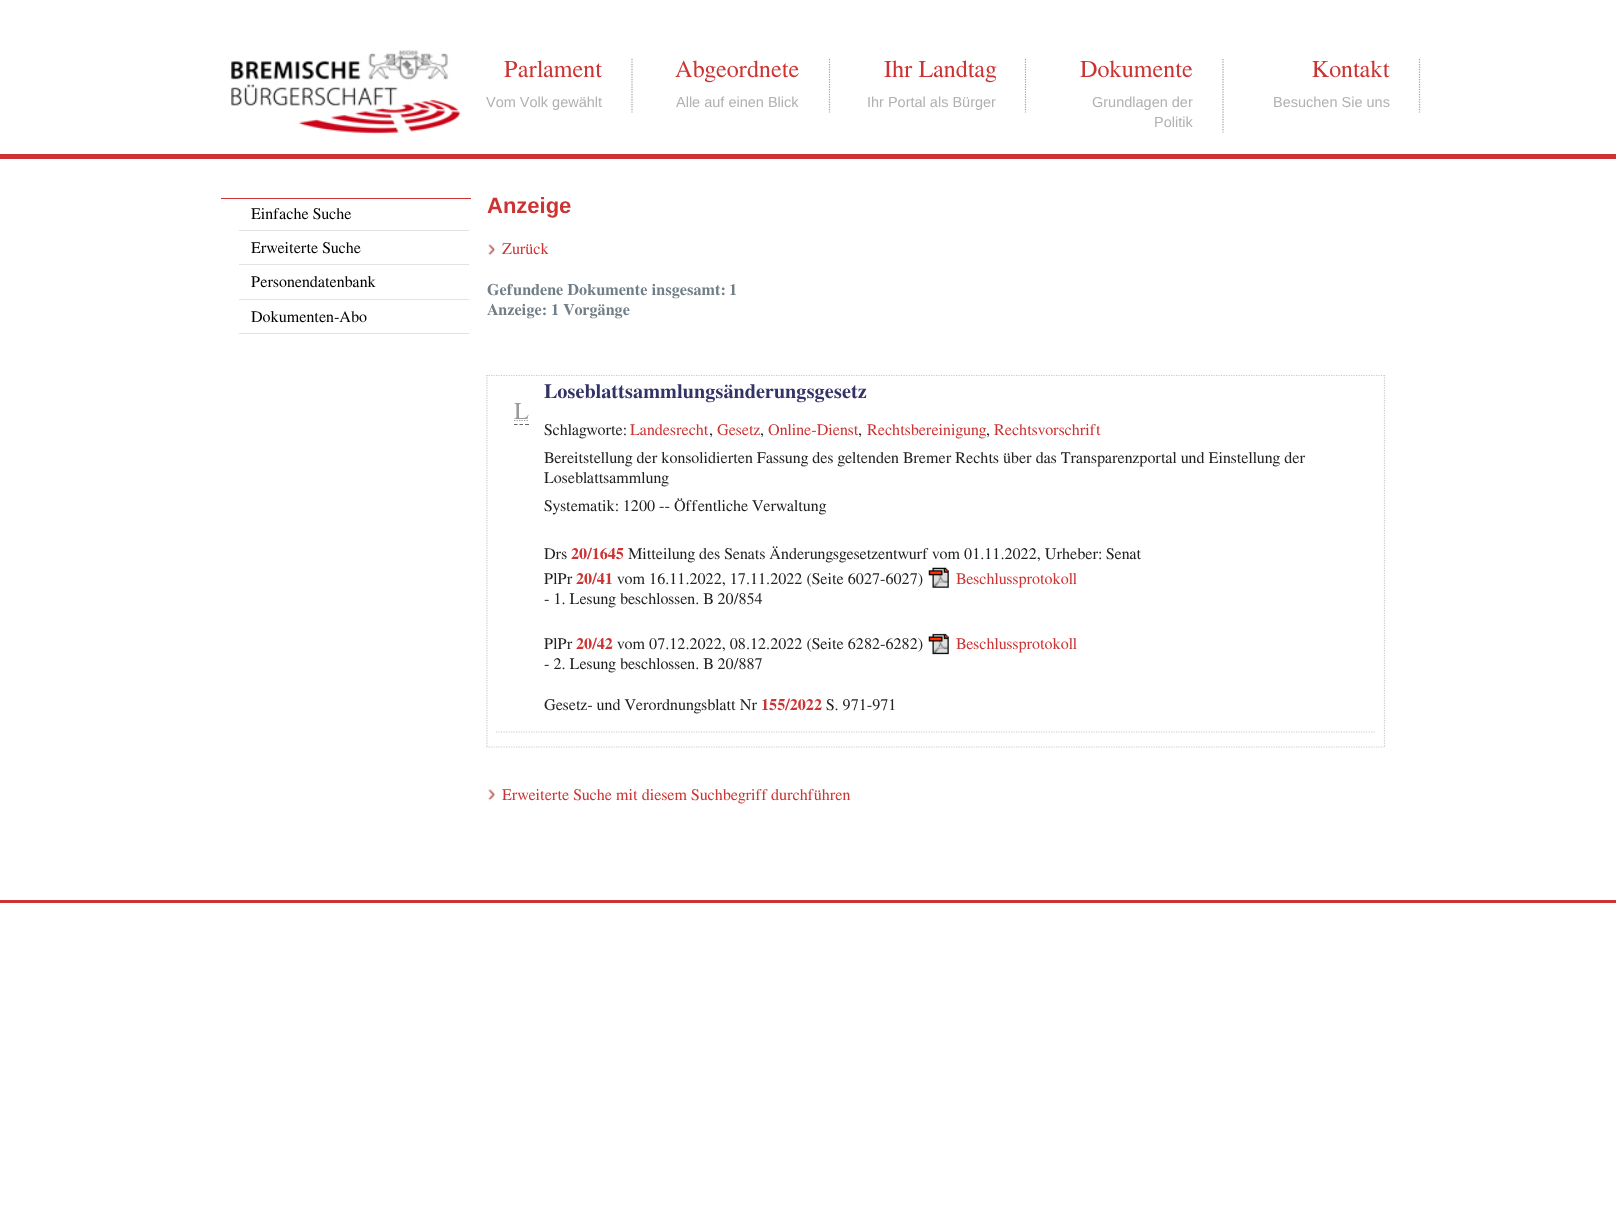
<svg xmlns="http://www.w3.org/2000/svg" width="1616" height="1216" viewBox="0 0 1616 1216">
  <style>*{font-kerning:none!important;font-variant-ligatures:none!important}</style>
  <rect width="100%" height="100%" fill="#fff"/>
  <path d="M0 154h1616v5H0z" fill="#c33"/>
  <image x="231" y="50" width="230" height="84" href="img/1.png"/>
  <path d="M632 59V112.5" fill="none" stroke="#a1a1a1" stroke-width="1.2" stroke-dasharray="1.25 1.25"/>
  <path d="M829.5 59V112.5" fill="none" stroke="#a1a1a1" stroke-width="1.2" stroke-dasharray="1.25 1.25"/>
  <path d="M1025.5 59V112.5" fill="none" stroke="#a1a1a1" stroke-width="1.2" stroke-dasharray="1.25 1.25"/>
  <path d="M1223 59V132.5" fill="none" stroke="#a1a1a1" stroke-width="1.2" stroke-dasharray="1.25 1.25"/>
  <path d="M1419.5 59V112.5" fill="none" stroke="#a1a1a1" stroke-width="1.2" stroke-dasharray="1.25 1.25"/>
  <path d="M0 900h1616v3H0z" fill="#c33"/>
  <path d="M221 198h250v1H221z" fill="#c33"/>
  <path d="M239 230h230v1H239z" fill="#e3e2e0"/>
  <path d="M239 264h230v1H239z" fill="#e3e2e0"/>
  <path d="M239 299h230v1H239z" fill="#e3e2e0"/>
  <path d="M239 333h230v1H239z" fill="#e3e2e0"/>
  <image x="488" y="244" width="8" height="12" href="img/2.png"/>
  <path d="M486 375.5H1385" fill="none" stroke="#ccc" stroke-width="1.2" stroke-dasharray="1.25 1.25"/>
  <path d="M1384.5 375V747.5" fill="none" stroke="#ccc" stroke-width="1.2" stroke-dasharray="1.25 1.25"/>
  <path d="M486 747H1385" fill="none" stroke="#ccc" stroke-width="1.2" stroke-dasharray="1.25 1.25"/>
  <path d="M487 375V747.5" fill="none" stroke="#ccc" stroke-width="1.2" stroke-dasharray="1.25 1.25"/>
  <path d="M514 424.5H517.5M519.5 424.5H523M525 424.5H529" fill="none" stroke="#666" stroke-width="1.2"/>
  <path d="M514 420.5H528.5" fill="none" stroke="#999" stroke-width="1.2" stroke-dasharray="1.25 1.25"/>
  <image x="928" y="567" width="21" height="21" href="img/3.png"/>
  <image x="928" y="633" width="21" height="22" href="img/4.png"/>
  <path d="M496 732H1375" fill="none" stroke="#ccc" stroke-width="1.2" stroke-dasharray="1.25 1.25"/>
  <image x="488" y="789" width="8" height="12" href="img/2.png"/>
  <text x="504" y="77" font-family="FreeSerif" font-size="24.25" fill="#c33">Parlament</text>
  <text x="486" y="107" font-family="Liberation Sans" font-size="14.5" fill="#b1b1b1">Vom Volk gewählt</text>
  <text x="675" y="77" font-family="FreeSerif" font-size="24.25" fill="#c33">Abgeordnete</text>
  <text x="676" y="107" font-family="Liberation Sans" font-size="14.5" fill="#b1b1b1">Alle auf einen Blick</text>
  <text x="884" y="77" font-family="FreeSerif" font-size="24.25" fill="#c33">Ihr Landtag</text>
  <text x="867" y="107" font-family="Liberation Sans" font-size="14.5" fill="#b1b1b1">Ihr Portal als Bürger</text>
  <text x="1080" y="77" font-family="FreeSerif" font-size="24.25" fill="#c33">Dokumente</text>
  <g font-family="Liberation Sans" font-size="14.5" fill="#b1b1b1">
    <text x="1092" y="107">Grundlagen der</text>
    <text x="1154" y="127">Politik</text>
  </g>
  <text x="1312" y="77" font-family="FreeSerif" font-size="24.25" fill="#c33">Kontakt</text>
  <text x="1273" y="107" font-family="Liberation Sans" font-size="14.5" fill="#b1b1b1">Besuchen Sie uns</text>
  <g font-family="FreeSerif" font-size="16.15" fill="#000">
    <text x="251" y="219">Einfache Suche</text>
    <text x="251" y="253">Erweiterte Suche</text>
    <text x="251" y="287">Personendatenbank</text>
    <text x="251" y="322">Dokumenten-Abo</text>
  </g>
  <text x="487" y="213" font-family="Liberation Sans" font-size="22" font-weight="bold" fill="#c33">Anzeige</text>
  <text x="502" y="254" font-family="FreeSerif" font-size="16.15" fill="#c33">Zurück</text>
  <g font-family="FreeSerif" font-size="16.15" font-weight="bold" fill="#707e87">
    <text x="487" y="295">Gefundene Dokumente insgesamt:</text>
    <text x="729" y="295">1</text>
    <text x="487" y="315">Anzeige: 1 Vorgänge</text>
  </g>
  <text x="544" y="398" font-family="FreeSerif" font-size="20.25" font-weight="bold" fill="#333367">Loseblattsammlungsänderungsgesetz</text>
  <text x="514" y="419" font-family="FreeSerif" font-size="24.25" fill="#999">L</text>
  <text x="544" y="435" font-family="FreeSerif" font-size="16.15" fill="#222">Schlagworte:</text>
  <text x="630" y="435" font-family="FreeSerif" font-size="16.15" fill="#c33">Landesrecht</text>
  <text x="709" y="435" font-family="FreeSerif" font-size="16.15" fill="#222">,</text>
  <text x="717" y="435" font-family="FreeSerif" font-size="16.15" fill="#c33">Gesetz</text>
  <text x="760" y="435" font-family="FreeSerif" font-size="16.15" fill="#222">,</text>
  <text x="768" y="435" font-family="FreeSerif" font-size="16.15" fill="#c33">Online-Dienst</text>
  <text x="858" y="435" font-family="FreeSerif" font-size="16.15" fill="#222">,</text>
  <text x="867" y="435" font-family="FreeSerif" font-size="16.15" fill="#c33">Rechtsbereinigung</text>
  <text x="986" y="435" font-family="FreeSerif" font-size="16.15" fill="#222">,</text>
  <text x="994" y="435" font-family="FreeSerif" font-size="16.15" fill="#c33">Rechtsvorschrift</text>
  <g font-family="FreeSerif" font-size="16.15" fill="#222">
    <text x="544" y="463">Bereitstellung der konsolidierten Fassung des geltenden</text>
    <text x="903" y="463">Bremer Rechts über das Transparenzportal und Einstellung der</text>
    <text x="544" y="483">Loseblattsammlung</text>
    <text x="544" y="511">Systematik: 1200 -- Öffentliche</text>
    <text x="752" y="511">Verwaltung</text>
    <text x="544" y="559">Drs</text>
  </g>
  <text x="571" y="559" font-family="FreeSerif" font-size="16.15" font-weight="bold" fill="#c33">20/1645</text>
  <g font-family="FreeSerif" font-size="16.15" fill="#222">
    <text x="628" y="559">Mitteilung des Senats Änderungsgesetzentwurf</text>
    <text x="932" y="559">vom 01.11.2022, Urheber:</text>
    <text x="1106" y="559">Senat</text>
    <text x="544" y="584">PlPr</text>
  </g>
  <text x="576" y="584" font-family="FreeSerif" font-size="16.15" font-weight="bold" fill="#c33">20/41</text>
  <text x="617" y="584" font-family="FreeSerif" font-size="16.15" fill="#222">vom 16.11.2022, 17.11.2022 (Seite 6027-6027)</text>
  <text x="956" y="584" font-family="FreeSerif" font-size="16.15" fill="#c33">Beschlussprotokoll</text>
  <g font-family="FreeSerif" font-size="16.15" fill="#222">
    <text x="544" y="604">- 1. Lesung beschlossen. B 20/854</text>
    <text x="544" y="649">PlPr</text>
  </g>
  <text x="576" y="649" font-family="FreeSerif" font-size="16.15" font-weight="bold" fill="#c33">20/42</text>
  <text x="617" y="649" font-family="FreeSerif" font-size="16.15" fill="#222">vom 07.12.2022, 08.12.2022 (Seite 6282-6282)</text>
  <text x="956" y="649" font-family="FreeSerif" font-size="16.15" fill="#c33">Beschlussprotokoll</text>
  <g font-family="FreeSerif" font-size="16.15" fill="#222">
    <text x="544" y="669">- 2. Lesung beschlossen. B 20/887</text>
    <text x="544" y="710">Gesetz- und Verordnungsblatt Nr</text>
  </g>
  <text x="761" y="710" font-family="FreeSerif" font-size="16.15" font-weight="bold" fill="#c33">155/2022</text>
  <text x="826" y="710" font-family="FreeSerif" font-size="16.15" fill="#222">S. 971-971</text>
  <text x="502" y="800" font-family="FreeSerif" font-size="16.15" fill="#c33">Erweiterte Suche mit diesem Suchbegriff</text>
  <text x="771" y="800" font-family="FreeSerif" font-size="16.15" fill="#c33">durchführen</text>
</svg>
